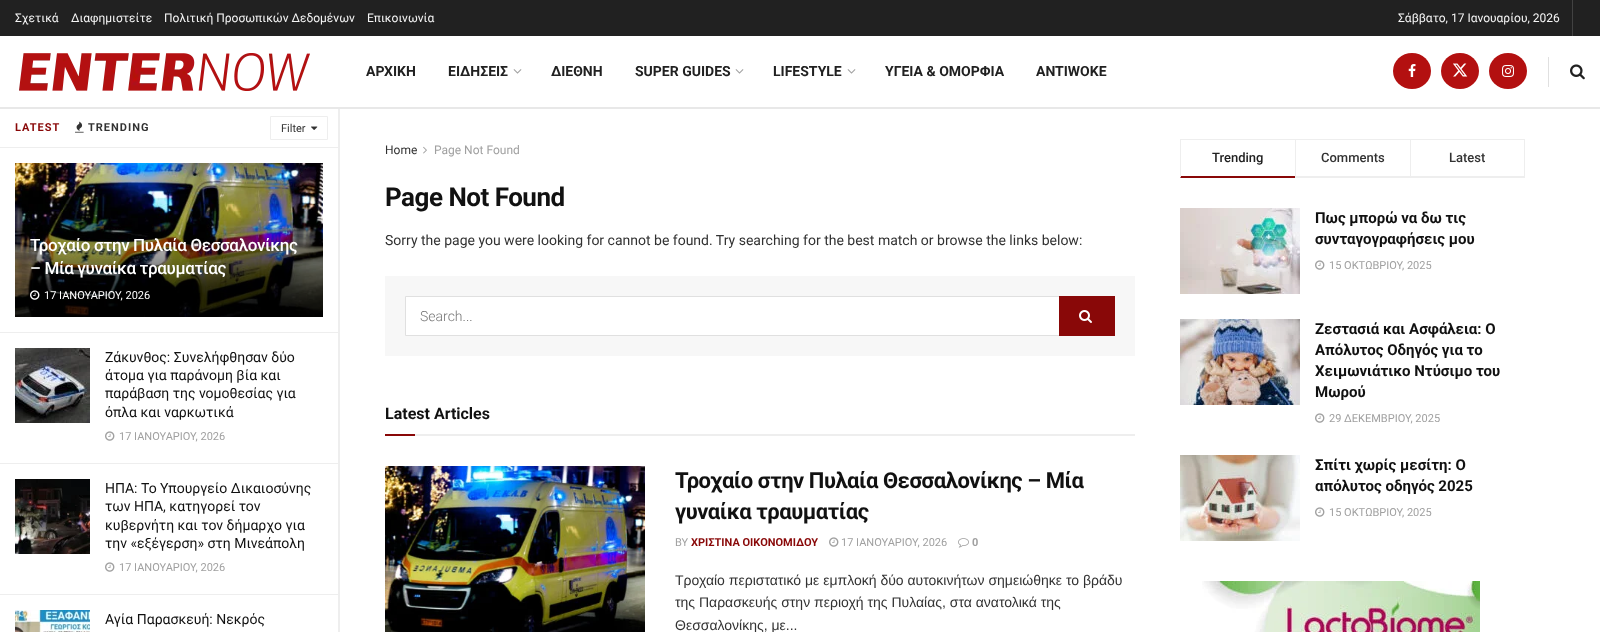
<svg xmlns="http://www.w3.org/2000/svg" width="1600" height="632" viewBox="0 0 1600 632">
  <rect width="100%" height="100%" fill="#fff"/>
  <path d="M0 0h1600v36H0z" fill="#212121"/>
  <path d="M1572 0h1v36H1572z" fill="#424242"/>
  <path d="M0 107h1600v2H0z" fill="#e8e8e8"/>
  <image x="19" y="53" width="291" height="38" href="img/1.png"/>
  <image x="513" y="69" width="9" height="5" href="img/2.png"/>
  <image x="735" y="69" width="9" height="5" href="img/2.png"/>
  <image x="847" y="69" width="9" height="5" href="img/2.png"/>
  <ellipse cx="1412" cy="71" rx="19" ry="18" fill="#b31010"/>
  <image x="1408" y="64" width="8" height="13" href="img/3.png"/>
  <ellipse cx="1460" cy="71" rx="19" ry="18" fill="#b31010"/>
  <image x="1453" y="63" width="15" height="14" href="img/4.png"/>
  <ellipse cx="1508" cy="71" rx="19" ry="18" fill="#b31010"/>
  <image x="1502" y="65" width="12" height="12" href="img/5.png"/>
  <path d="M1548 57h1v30H1548z" fill="#e0e0e0"/>
  <image x="1570" y="64" width="15" height="16" href="img/6.png"/>
  <image x="423" y="146" width="4" height="8" href="img/7.png"/>
  <path d="M385 276h750v80H385z" fill="#f7f7f7"/>
  <path d="M406 297h653v38H406z" fill="#fff"/>
  <path d="M405.5 296.5h709v39H405.5z" fill="none" stroke="#e0e0e0"/>
  <path d="M1059 296h56v40H1059z" fill="#890808"/>
  <image x="1079" y="310" width="13" height="13" href="img/8.png"/>
  <path d="M415 434h720v2H415z" fill="#eee"/>
  <path d="M385 434h30v2H385z" fill="#890808"/>
  <image x="385" y="466" width="260" height="166" href="img/9.png"/>
  <image x="829" y="537" width="10" height="10" href="img/10.png"/>
  <image x="958" y="538" width="11" height="10" href="img/11.png"/>
  <path d="M1180 139h345v1H1180z" fill="#eee"/>
  <path d="M1295 178H1180L1181 176H1295Z" fill="#890808"/>
  <path d="M1180 178V139L1181 140V176Z" fill="#eee"/>
  <path d="M1295 176h115v2H1295z" fill="#eee"/>
  <path d="M1295 139h1v39H1295z" fill="#eee"/>
  <path d="M1524 139h1v39H1524z" fill="#eee"/>
  <path d="M1410 176h115v2H1410z" fill="#eee"/>
  <path d="M1410 139h1v39H1410z" fill="#eee"/>
  <image x="1180" y="208" width="120" height="86" href="img/12.png"/>
  <image x="1315" y="260" width="10" height="10" href="img/10.png"/>
  <image x="1180" y="319" width="120" height="86" href="img/13.png"/>
  <image x="1315" y="413" width="10" height="10" href="img/10.png"/>
  <image x="1180" y="455" width="120" height="86" href="img/14.png"/>
  <image x="1315" y="507" width="10" height="10" href="img/10.png"/>
  <image x="1202" y="581" width="278" height="51" href="img/15.png"/>
  <path d="M338 109h2v523H338z" fill="#eee"/>
  <path d="M0 147h338v1H0z" fill="#eee"/>
  <image x="75" y="121" width="9" height="12" href="img/16.png"/>
  <path d="M270.5 116.5h57v23H270.5z" fill="none" stroke="#eee"/>
  <image x="311" y="126" width="7" height="4" href="img/17.png"/>
  <path d="M0 332h338v1H0z" fill="#eee"/>
  <image x="15" y="163" width="308" height="154" href="img/18.png"/>
  <image x="30" y="290" width="10" height="10" href="img/19.png"/>
  <path d="M0 463h338v1H0z" fill="#eee"/>
  <image x="15" y="348" width="75" height="75" href="img/20.png"/>
  <image x="105" y="431" width="10" height="10" href="img/10.png"/>
  <path d="M0 594h338v1H0z" fill="#eee"/>
  <image x="15" y="479" width="75" height="75" href="img/21.png"/>
  <image x="105" y="562" width="10" height="10" href="img/10.png"/>
  <image x="15" y="610" width="75" height="22" href="img/22.png"/>
  <g font-family="Roboto" font-size="12" fill="#f5f5f5">
    <text x="15" y="22">Σχετικά</text>
    <text x="71" y="22">Διαφημιστείτε</text>
    <text x="164" y="22">Πολιτική Προσωπικών Δεδομένων</text>
    <text x="367" y="22">Επικοινωνία</text>
    <text x="1398" y="22">Σάββατο, 17 Ιανουαρίου, 2026</text>
  </g>
  <g font-family="Roboto" font-size="14" font-weight="bold" fill="#212121">
    <text x="366" y="76">ΑΡΧΙΚΗ</text>
    <text x="448" y="76">ΕΙΔΗΣΕΙΣ</text>
    <text x="551" y="76">ΔΙΕΘΝΗ</text>
    <text x="635" y="76">SUPER GUIDES</text>
    <text x="773" y="76">LIFESTYLE</text>
    <text x="885" y="76">ΥΓΕΙΑ &amp; ΟΜΟΡΦΙΑ</text>
    <text x="1036" y="76">ANTIWOKE</text>
  </g>
  <text x="385" y="154" font-family="Roboto" font-size="12" fill="#323232">Home</text>
  <text x="434" y="154" font-family="Roboto" font-size="12" fill="#a0a0a0">Page Not Found</text>
  <text x="385" y="206" font-family="Roboto" font-size="26" font-weight="bold" letter-spacing="-0.5" fill="#111">Page Not Found</text>
  <text x="385" y="245" font-family="Roboto" font-size="14" fill="#323232">Sorry the page you were looking for cannot be found. Try searching for the best match or browse the links below:</text>
  <text x="420" y="321" font-family="Roboto" font-size="14" font-weight="300" fill="#757575">Search...</text>
  <text x="385" y="419" font-family="Roboto" font-size="16" font-weight="bold" fill="#111">Latest Articles</text>
  <g font-family="Roboto" font-size="22" font-weight="bold" letter-spacing="-0.45" fill="#111">
    <text x="675" y="488">Τροχαίο στην Πυλαία Θεσσαλονίκης – Μία</text>
    <text x="675" y="519">γυναίκα τραυματίας</text>
  </g>
  <text x="675" y="546" font-family="Roboto" font-size="11" fill="#a0a0a0">BY</text>
  <text x="691" y="546" font-family="Roboto" font-size="11" font-weight="bold" fill="#890808">ΧΡΙΣΤΙΝΑ ΟΙΚΟΝΟΜΙΔΟΥ</text>
  <text x="841" y="546" font-family="Roboto" font-size="11" fill="#a0a0a0">17 ΙΑΝΟΥΑΡΙΟΥ, 2026</text>
  <text x="972" y="546" font-family="Roboto" font-size="11" font-weight="bold" fill="#a0a0a0">0</text>
  <g font-family="Liberation Sans" font-size="14" fill="#323232">
    <text x="675" y="585">Τροχαίο περιστατικό με εμπλοκή δύο αυτοκινήτων σημειώθηκε το βράδυ</text>
    <text x="675" y="607">της Παρασκευής στην περιοχή της Πυλαίας, στα ανατολικά της</text>
    <text x="675" y="630">Θεσσαλονίκης, με...</text>
  </g>
  <text x="1212" y="162" font-family="Roboto" font-size="13" font-weight="500" fill="#212121">Trending</text>
  <g font-family="Roboto" font-size="13" font-weight="500" fill="#323232">
    <text x="1321" y="162">Comments</text>
    <text x="1449" y="162">Latest</text>
  </g>
  <g font-family="Roboto" font-size="15" font-weight="bold" fill="#111">
    <text x="1315" y="223">Πως μπορώ να δω τις</text>
    <text x="1315" y="244">συνταγογραφήσεις μου</text>
  </g>
  <text x="1329" y="269" font-family="Roboto" font-size="11" fill="#a0a0a0">15 ΟΚΤΩΒΡΙΟΥ, 2025</text>
  <g font-family="Roboto" font-size="15" font-weight="bold" fill="#111">
    <text x="1315" y="334">Ζεστασιά και Ασφάλεια: Ο</text>
    <text x="1315" y="355">Απόλυτος Οδηγός για το</text>
    <text x="1315" y="376">Χειμωνιάτικο Ντύσιμο του</text>
    <text x="1315" y="397">Μωρού</text>
  </g>
  <text x="1329" y="422" font-family="Roboto" font-size="11" fill="#a0a0a0">29 ΔΕΚΕΜΒΡΙΟΥ, 2025</text>
  <g font-family="Roboto" font-size="15" font-weight="bold" fill="#111">
    <text x="1315" y="470">Σπίτι χωρίς μεσίτη: Ο</text>
    <text x="1315" y="491">απόλυτος οδηγός 2025</text>
  </g>
  <text x="1329" y="516" font-family="Roboto" font-size="11" fill="#a0a0a0">15 ΟΚΤΩΒΡΙΟΥ, 2025</text>
  <text x="15" y="131" font-family="Roboto" font-size="11" font-weight="bold" letter-spacing="1" fill="#890808">LATEST</text>
  <text x="88" y="131" font-family="Roboto" font-size="11" font-weight="bold" letter-spacing="1" fill="#323232">TRENDING</text>
  <text x="281" y="132" font-family="Roboto" font-size="11" fill="#323232">Filter</text>
  <g font-family="Roboto" font-size="17" font-weight="500" letter-spacing="-0.35" fill="#fff">
    <text x="30" y="251">Τροχαίο στην Πυλαία Θεσσαλονίκης</text>
    <text x="30" y="274">– Μία γυναίκα τραυματίας</text>
  </g>
  <text x="44" y="299" font-family="Roboto" font-size="11" fill="#fff">17 ΙΑΝΟΥΑΡΙΟΥ, 2026</text>
  <g font-family="Roboto" font-size="14" fill="#111">
    <text x="105" y="362">Ζάκυνθος: Συνελήφθησαν δύο</text>
    <text x="105" y="380">άτομα για παράνομη βία και</text>
    <text x="105" y="398">παράβαση της νομοθεσίας για</text>
    <text x="105" y="417">όπλα και ναρκωτικά</text>
  </g>
  <text x="119" y="440" font-family="Roboto" font-size="11" fill="#a0a0a0">17 ΙΑΝΟΥΑΡΙΟΥ, 2026</text>
  <g font-family="Roboto" font-size="14" fill="#111">
    <text x="105" y="493">ΗΠΑ: Το Υπουργείο Δικαιοσύνης</text>
    <text x="105" y="511">των ΗΠΑ, κατηγορεί τον</text>
    <text x="105" y="530">κυβερνήτη και τον δήμαρχο για</text>
    <text x="105" y="548">την «εξέγερση» στη Μινεάπολη</text>
  </g>
  <text x="119" y="571" font-family="Roboto" font-size="11" fill="#a0a0a0">17 ΙΑΝΟΥΑΡΙΟΥ, 2026</text>
  <text x="105" y="624" font-family="Roboto" font-size="14" fill="#111">Αγία Παρασκευή: Νεκρός</text>
</svg>
